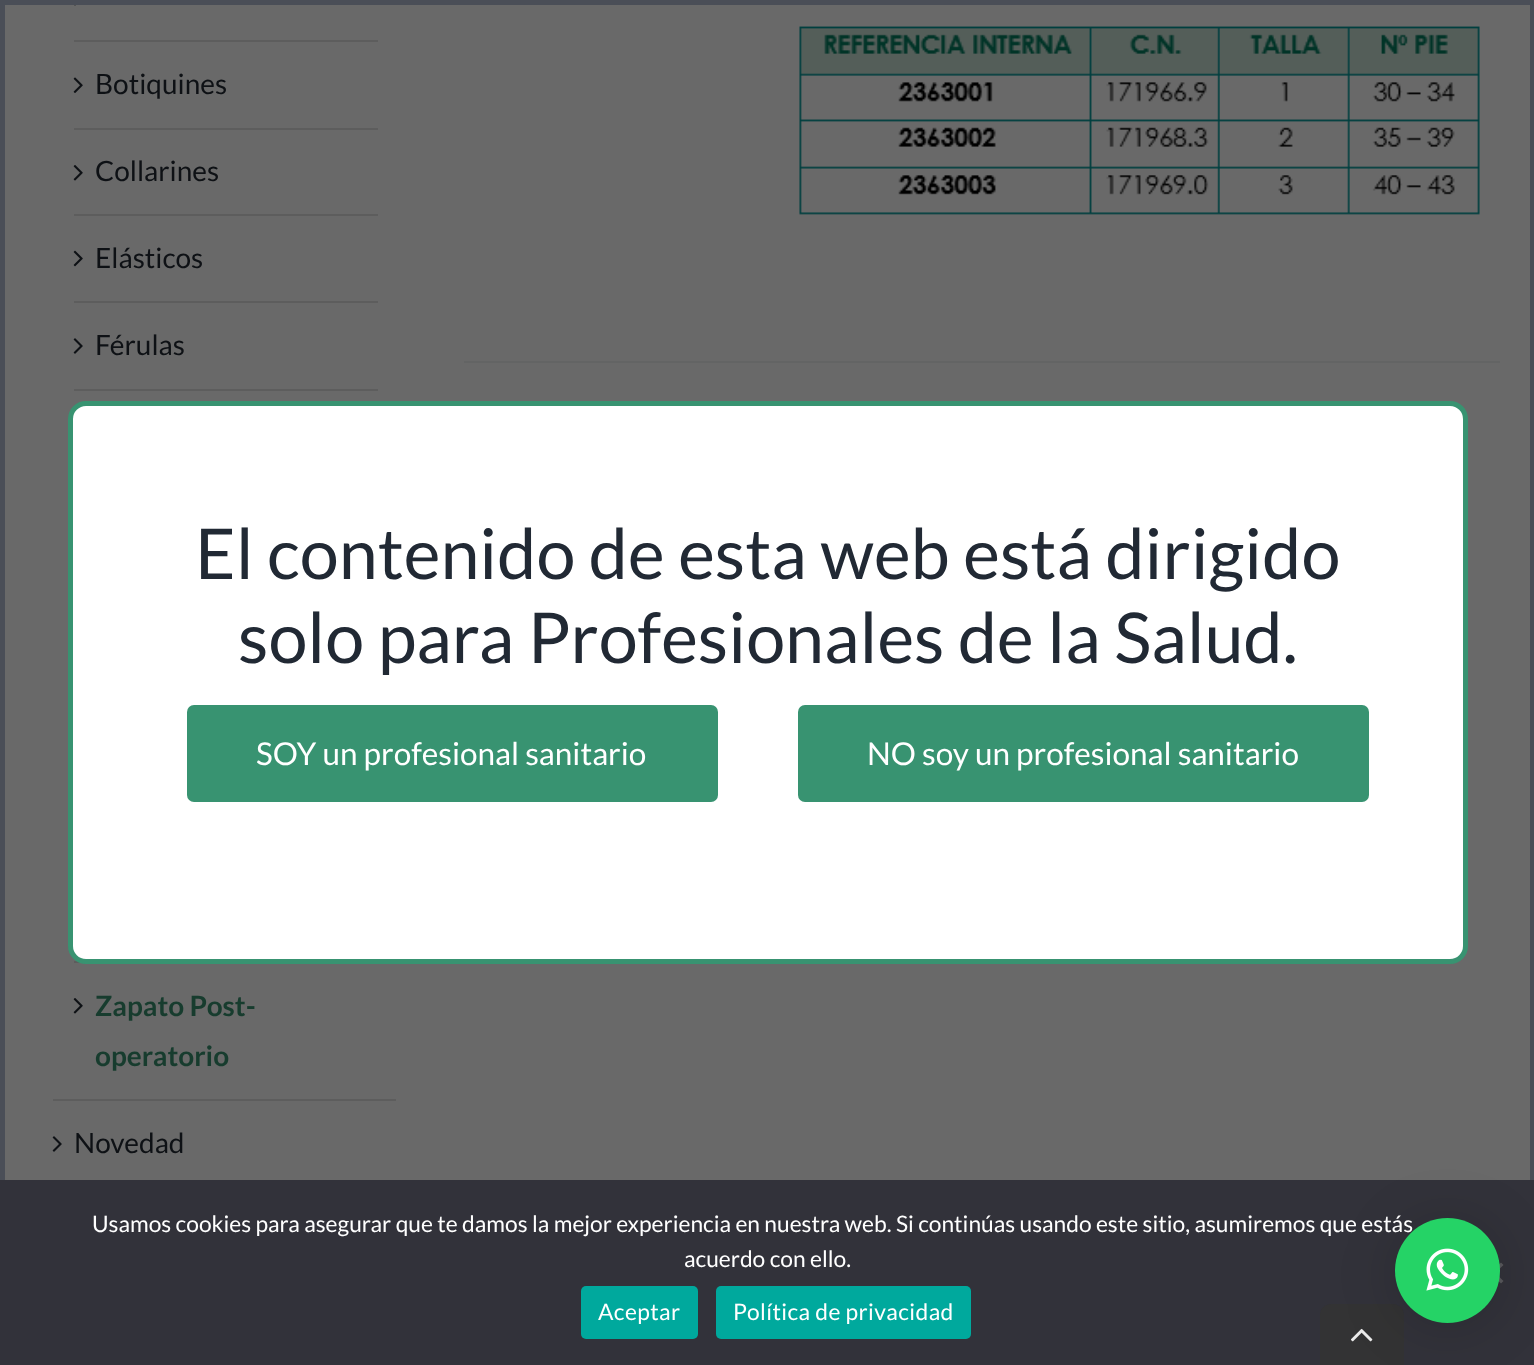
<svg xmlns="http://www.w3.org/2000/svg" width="1534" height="1365">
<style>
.a{font:28px Lato;fill:#0e1115}
.b{font:bold 28px Lato;fill:#173c2e}
.c{font:70px Lato;fill:#212934}
.d{font:31.5px Lato;fill:#fff}
.e{font:22.75px Lato;fill:#fff}
.f{font:22.75px Lato;letter-spacing:0.4px;fill:#fff}
</style>
<rect width="100%" height="100%" fill="#696969"/>
<path fill="#5d5d5d" d="M53 1099h343v2H53z"/>
<path fill="#5d5d5d" d="M74 40h304v2H74z"/>
<image href="1.png" x="74" y="5" width="2" height="1"/>
<path fill="#5d5d5d" d="M74 128h304v2H74z"/>
<image href="2.png" x="73" y="77" width="10" height="16"/>
<path fill="#5d5d5d" d="M74 214h304v2H74z"/>
<image href="3.png" x="73" y="165" width="10" height="16"/>
<path fill="#5d5d5d" d="M74 301h304v2H74z"/>
<image href="4.png" x="73" y="250" width="10" height="17"/>
<path fill="#5d5d5d" d="M74 389h304v2H74z"/>
<image href="5.png" x="73" y="338" width="10" height="16"/>
<path fill="#5d5d5d" d="M74 961h6v2H74z"/>
<image href="3.png" x="73" y="998" width="10" height="16"/>
<image href="5.png" x="52" y="1136" width="10" height="16"/>
<path fill="#636464" d="M464 361h1036v2H464z"/>
<image href="6.png" x="799" y="26" width="681" height="189"/>
<path fill="none" stroke="#4a4e57" stroke-width="5" d="M2.5 2.5h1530v1360H2.5z"/>
<rect fill="#fff" stroke="#389371" stroke-width="5" x="70.5" y="403.5" width="1395" height="558" rx="15.5"/>
<rect fill="#389371" x="187" y="705" width="531" height="97" rx="7"/>
<rect fill="#389371" x="798" y="705" width="571" height="97" rx="7"/>
<path fill="#32323a" d="M0 1180h1534v185H0z"/>
<path fill="#59595d" d="M1501 1262.5l2.5 2.5l-19 18.5l-2.5-2.5z"/>
<path fill="#59595d" d="M1482 1265l2.5-2.5l19 18.5l-2.5 2.5z"/>
<rect fill="#00a99d" x="581" y="1286" width="117" height="53" rx="5"/>
<rect fill="#00a99d" x="716" y="1286" width="255" height="53" rx="5"/>
<path fill="#333334" d="M1331 1304h62c6 0 11 5 11 11v50h-84v-50c0-6 5-11 11-11z"/>
<image href="8.png" x="1351" y="1328" width="22" height="14"/>
<rect fill="#00000029" filter="blur(28px)" x="1395" y="1222" width="105" height="105" rx="52.5"/>
<text class="a" x="95" y="94">Botiquines</text>
<text class="a" x="95" y="181">Collarines</text>
<text class="a" x="95" y="268">Elásticos</text>
<text class="a" x="95" y="355">Férulas</text>
<text class="b" x="95" y="1016">Zapato Post-</text>
<text class="b" x="95" y="1066">operatorio</text>
<text class="a" x="74" y="1153">Novedad</text>
<text class="c" x="195" y="579">El contenido de esta web está dirigido</text>
<text class="c" x="238" y="663">solo para Profesionales de la Salud.</text>
<text class="d" x="256" y="765">SOY un profesional sanitario</text>
<text class="d" x="867" y="765">NO soy un profesional sanitario</text>
<text class="e" x="92" y="1232">Usamos cookies para asegurar que te damos la mejor experiencia en nuestra web. Si continúas usando este sitio, asumiremos que estás</text>
<text class="e" x="684" y="1267">acuerdo con ello.</text>
<text class="f" x="598" y="1320">Aceptar</text>
<text class="f" x="733" y="1320">Política de privacidad</text>
<circle fill="#25d366" cx="1447.5" cy="1270.5" r="52.5"/>
<image href="7.png" x="1426" y="1248" width="43" height="43"/>
</svg>
